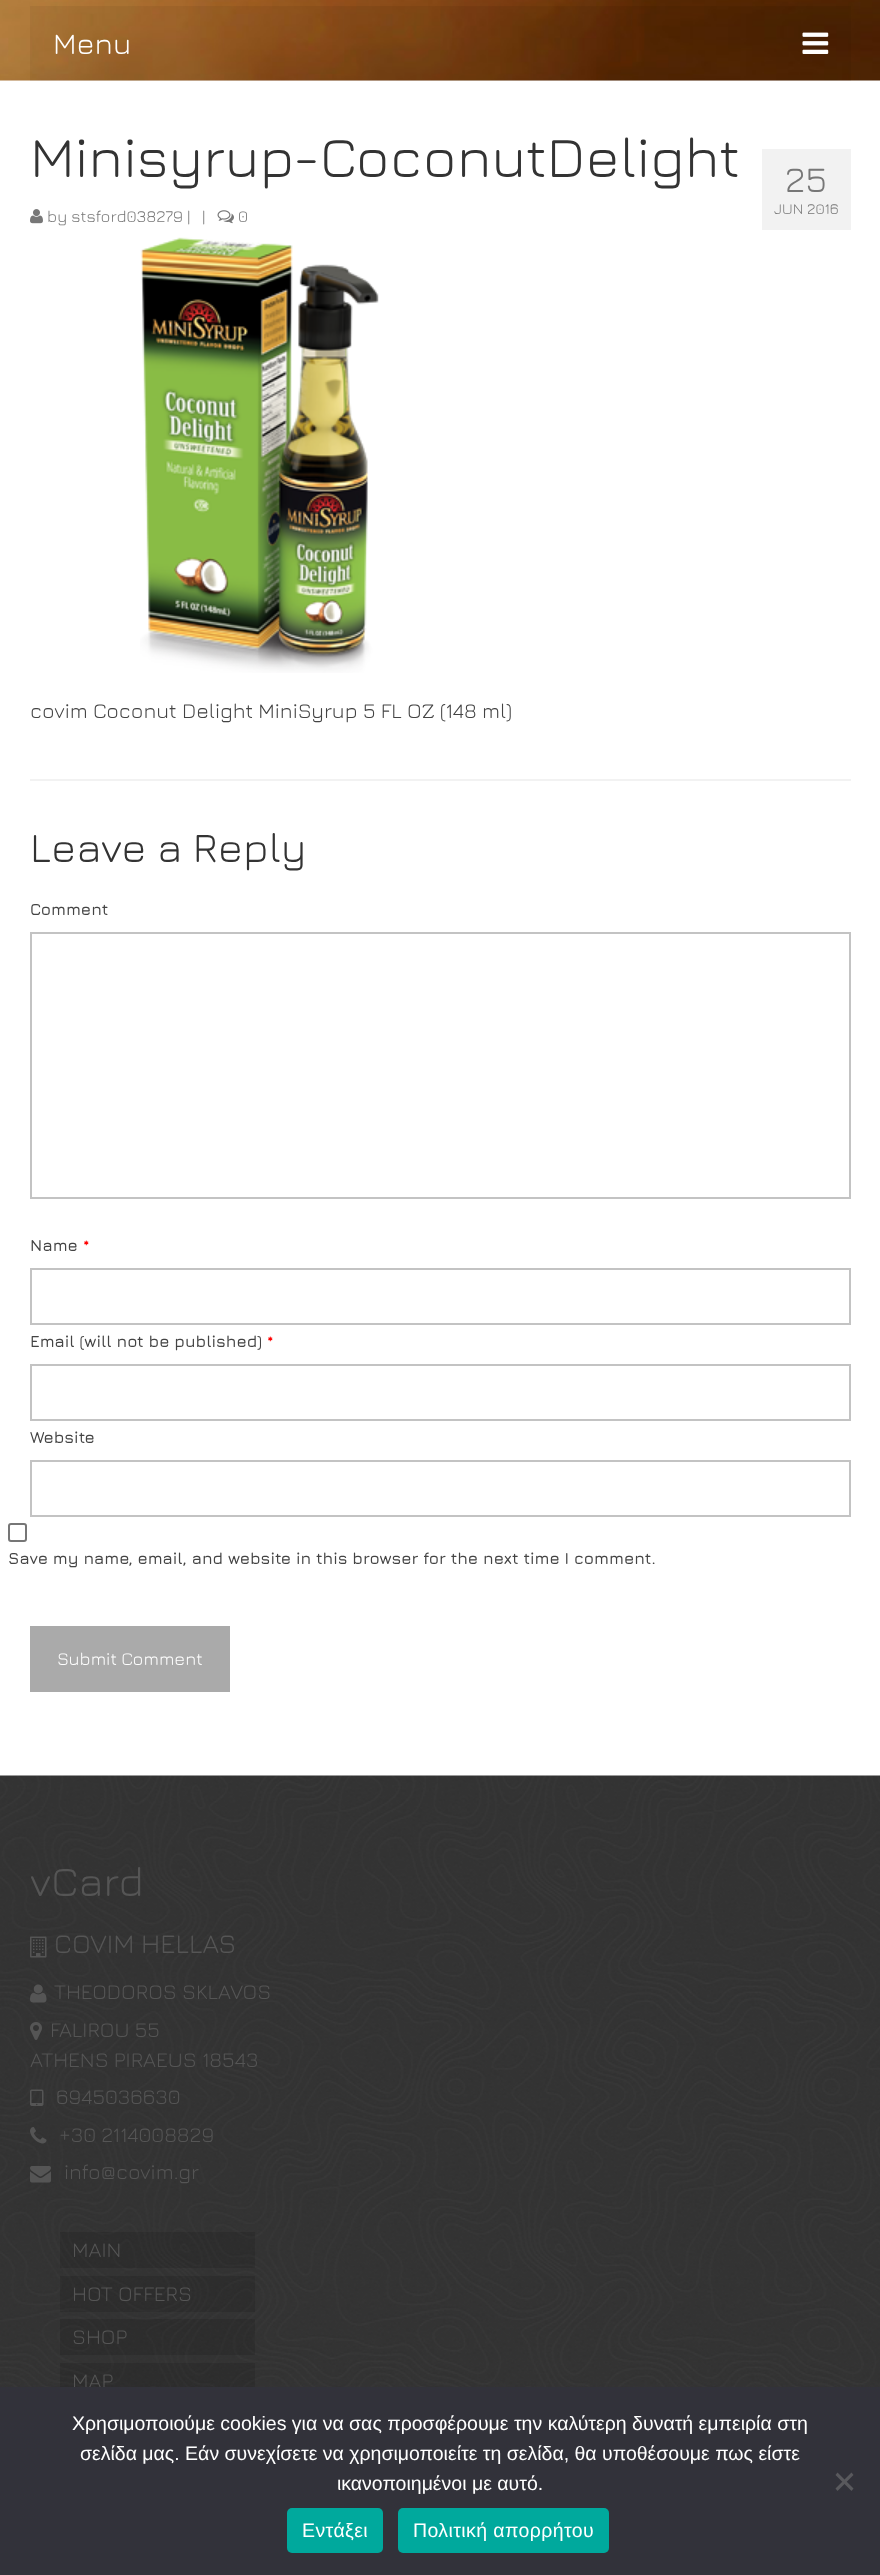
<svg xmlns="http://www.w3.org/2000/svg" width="880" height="2575">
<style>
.a{font:30px Jura;fill:#fff}
.b{font:57px Jura;fill:#333}
.c{font:16.5px Jura;fill:#777}
.d{font:36px Jura;fill:#777}
.e{font:15px Jura;fill:#777}
.f{font:21px Jura;fill:#444}
.g{font:42px Jura;fill:#333}
.h{font:600 16.5px Jura;fill:#444}
.i{font:600 16.5px Jura;fill:#f00}
.j{font:18px Jura;fill:#fff}
.k{font:42px Jura;fill:#555}
.l{font:27px Jura;fill:#555}
.m{font:21px Jura;fill:#555}
.n{font:19.5px Liberation Sans;fill:#fff}
.o{font:19.5px Liberation Sans;letter-spacing:0.4px;fill:#fff}
</style>
<rect width="100%" height="100%" fill="#fff"/>
<image href="1.png" x="0" y="0" width="880" height="81"/>
<path fill="#0000000d" d="M30 6h821v75H30z"/>
<image href="2.png" x="802" y="32" width="27" height="22"/>
<image href="3.png" x="30" y="209" width="13" height="15"/>
<image href="4.png" x="217" y="210" width="17" height="14"/>
<path fill="#f2f2f2" d="M762 149h89v81H762z"/>
<image href="5.png" x="140" y="237" width="239" height="436"/>
<path fill="#f2f2f2" d="M30 779h821v2H30z"/>
<path fill="none" stroke="#c3c3c3" stroke-width="2" d="M31 933h819v265H31z"/>
<path fill="none" stroke="#c3c3c3" stroke-width="2" d="M31 1269h819v55H31z"/>
<path fill="none" stroke="#c3c3c3" stroke-width="2" d="M31 1365h819v55H31z"/>
<path fill="none" stroke="#c3c3c3" stroke-width="2" d="M31 1461h819v55H31z"/>
<rect fill="none" stroke="#767676" stroke-width="2" x="9" y="1524" width="17" height="17" rx="2"/>
<path fill="#aaa" d="M30 1626h200v66H30z"/>
<image href="6.png" x="0" y="1775" width="880" height="612"/>
<image href="7.png" x="30" y="1936" width="17" height="22"/>
<image href="8.png" x="30" y="1984" width="17" height="19"/>
<image href="9.png" x="30" y="2022" width="12" height="18"/>
<image href="10.png" x="30" y="2089" width="14" height="17"/>
<image href="11.png" x="30" y="2127" width="17" height="17"/>
<image href="12.png" x="30" y="2166" width="21" height="17"/>
<path fill="#0000001a" d="M60 2232h195v36H60z"/>
<path fill="#0000001a" d="M60 2276h195v36H60z"/>
<path fill="#0000001a" d="M60 2319h195v36H60z"/>
<path fill="#0000001a" d="M60 2363h195v24H60z"/>
<text class="a" x="53" y="54">Menu</text>
<text class="b" x="30" y="177">Minisyrup-CoconutDelight</text>
<text class="c" x="47" y="222">by stsford038279 |</text>
<text class="c" x="202" y="222">|</text>
<text class="c" x="238" y="222">0</text>
<text class="d" x="785" y="192">25</text>
<text class="e" x="774" y="214">JUN 2016</text>
<text class="f" x="30" y="718">covim Coconut Delight MiniSyrup 5 FL OZ (148 ml)</text>
<text class="g" x="30" y="862">Leave a Reply</text>
<text class="h" x="30" y="915">Comment</text>
<text class="h" x="30" y="1251">Name</text>
<text class="i" x="83" y="1251">*</text>
<text class="h" x="30" y="1347">Email (will not be published)</text>
<text class="i" x="267" y="1347">*</text>
<text class="h" x="30" y="1443">Website</text>
<text class="h" x="8" y="1564">Save my name, email, and website in this browser for the next time I comment.</text>
<text class="j" x="57" y="1665">Submit Comment</text>
<text class="k" x="30" y="1896">vCard</text>
<text class="l" x="54" y="1953">COVIM HELLAS</text>
<text class="m" x="54" y="1999">THEODOROS SKLAVOS</text>
<text class="m" x="50" y="2037">FALIROU 55</text>
<text class="m" x="30" y="2067">ATHENS PIRAEUS 18543</text>
<text class="m" x="56" y="2104">6945036630</text>
<text class="m" x="59" y="2142">+30 2114008829</text>
<text class="m" x="64" y="2179">info@covim.gr</text>
<text class="m" x="72" y="2257">MAIN</text>
<text class="m" x="72" y="2301">HOT OFFERS</text>
<text class="m" x="72" y="2344">SHOP</text>
<text class="m" x="72" y="2388">MAP</text>
<path fill="#32323a" d="M0 2387h880v188H0z"/>
<text class="n" x="72" y="2430">Χρησιμοποιούμε cookies για να σας προσφέρουμε την καλύτερη δυνατή εμπειρία στη</text>
<text class="n" x="80" y="2460">σελίδα μας. Εάν συνεχίσετε να χρησιμοποιείτε τη σελίδα, θα υποθέσουμε πως είστε</text>
<text class="n" x="337" y="2490">ικανοποιημένοι με αυτό.</text>
<path fill="#59595d" d="M851.5 2472.5l2 2.5l-16 16l-2-2.5z"/>
<path fill="#59595d" d="M835.5 2475l2-2.5l16 16l-2 2.5z"/>
<rect fill="#00a99d" x="287" y="2508" width="96" height="45" rx="5"/>
<text class="o" x="302" y="2537">Εντάξει</text>
<rect fill="#00a99d" x="398" y="2508" width="211" height="45" rx="5"/>
<text class="o" x="413" y="2537">Πολιτική απορρήτου</text>
</svg>
